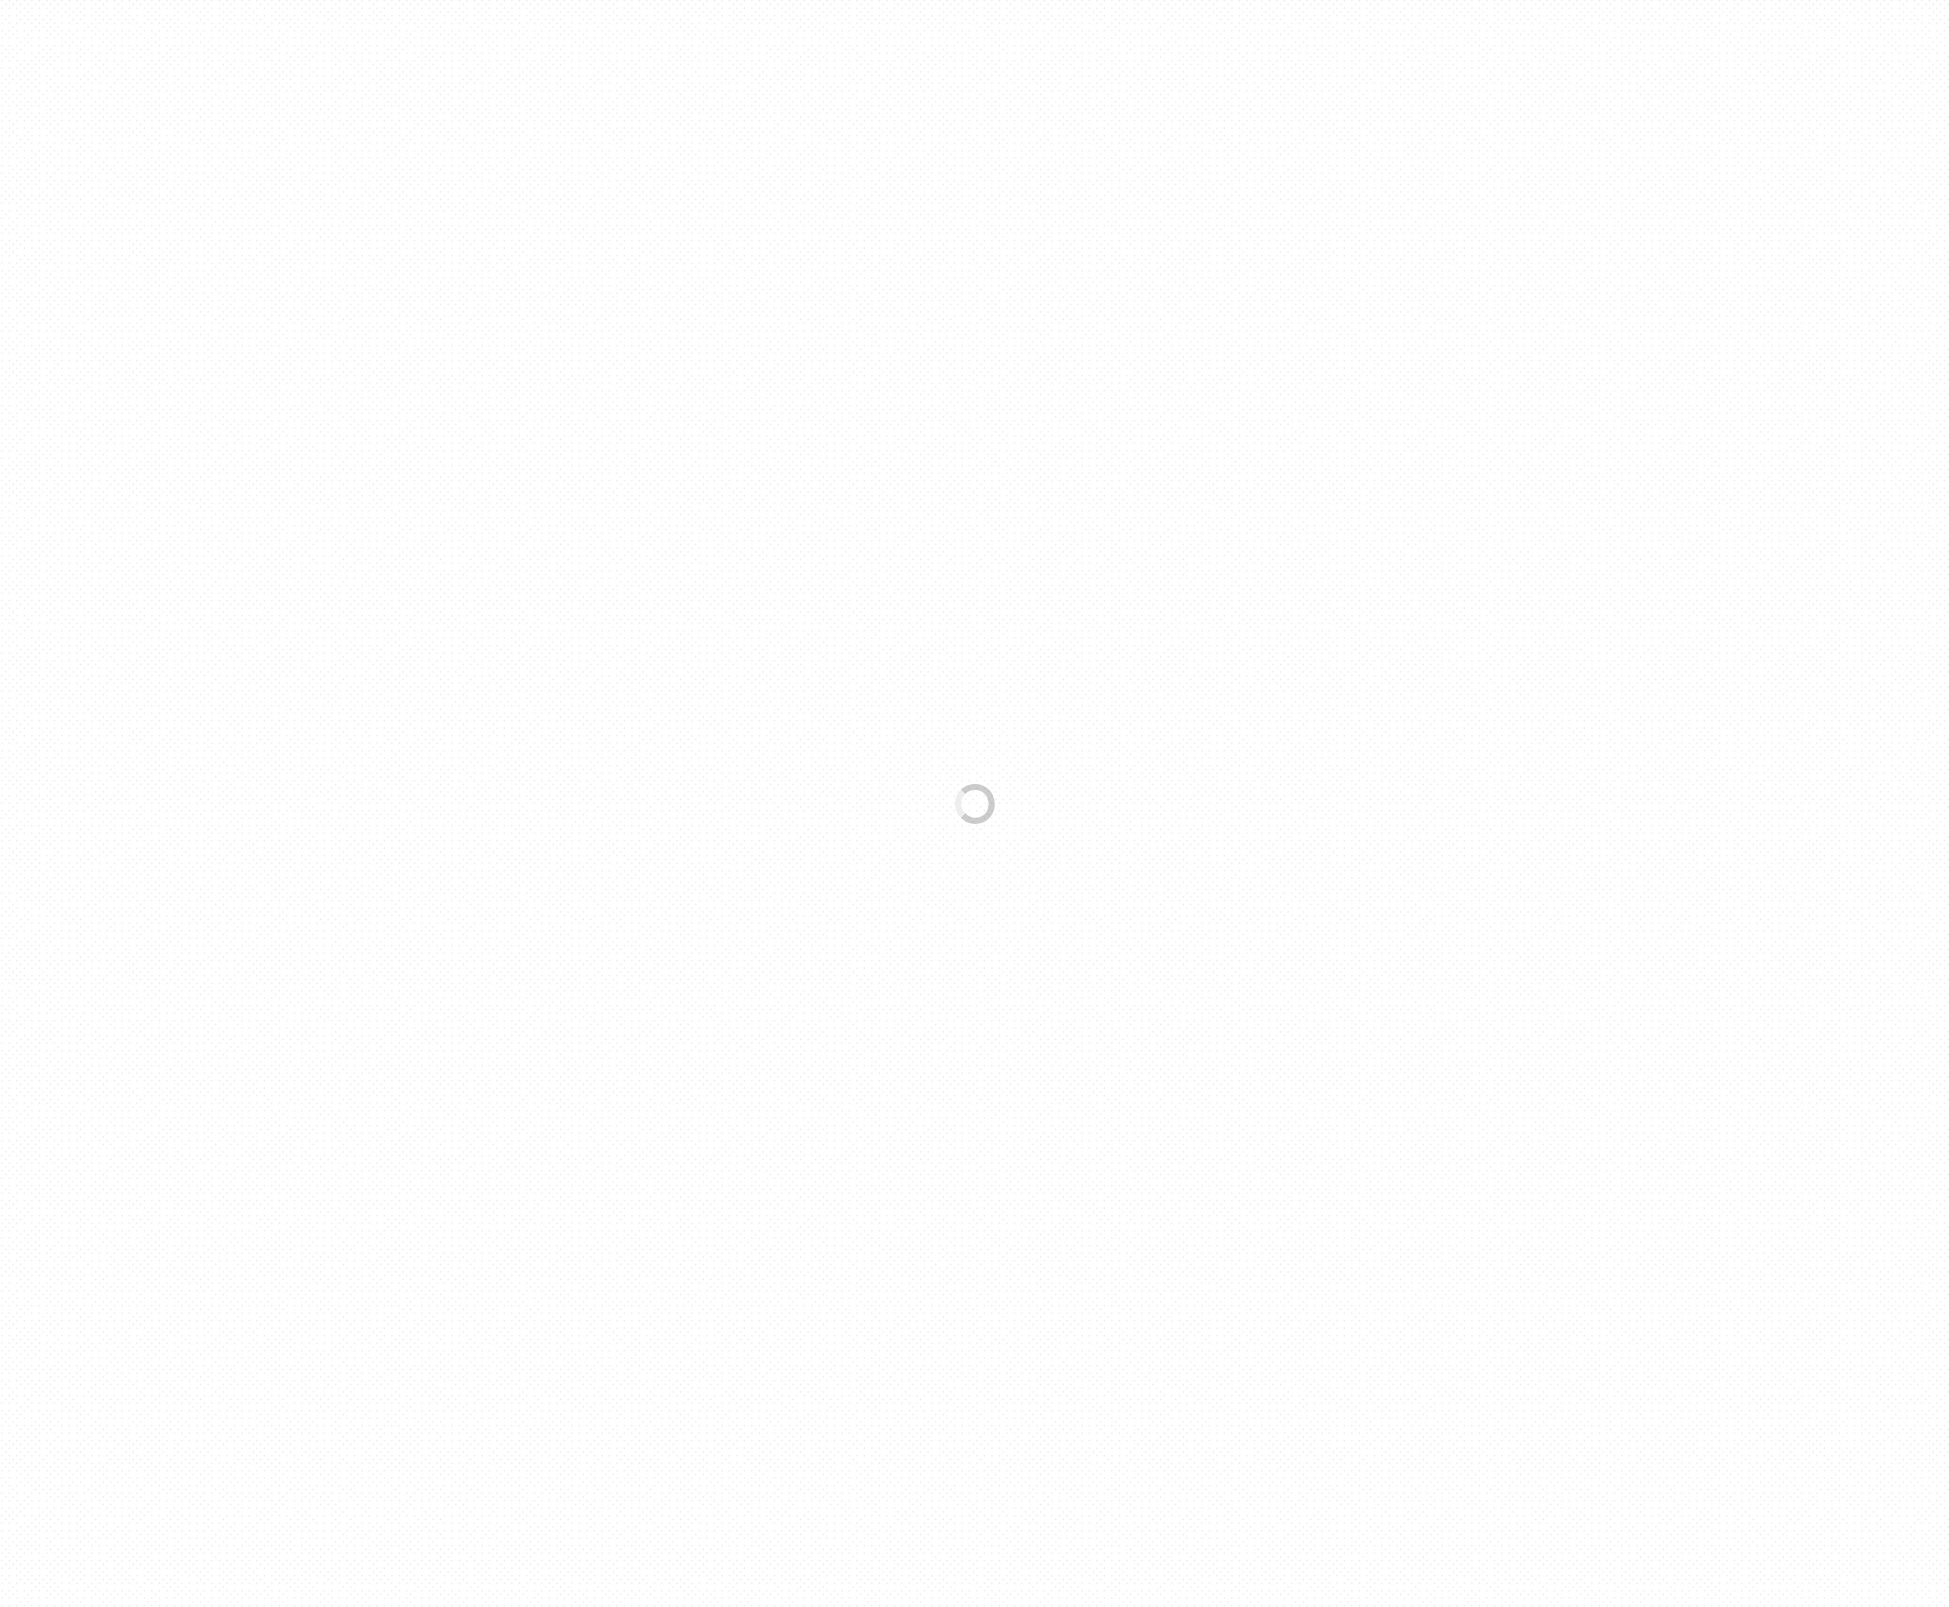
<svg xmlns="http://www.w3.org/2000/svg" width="1949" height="1607">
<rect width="100%" height="100%" fill="#fff"/>
<image href="1.png" x="1" y="0" width="1948" height="1607"/>
<path fill="none" stroke="#00000033" stroke-width="6.2" d="M963 792c3-3.5 7.5-5 12-5c20 0 23 29.5 3.5 33.5c-5.5 1-11.5-1-15.5-5"/>
<path fill="none" stroke="#eee" stroke-width="6.2" d="M963 815.5c-6.5-6.5-6.5-17 0-23.5"/>
</svg>
